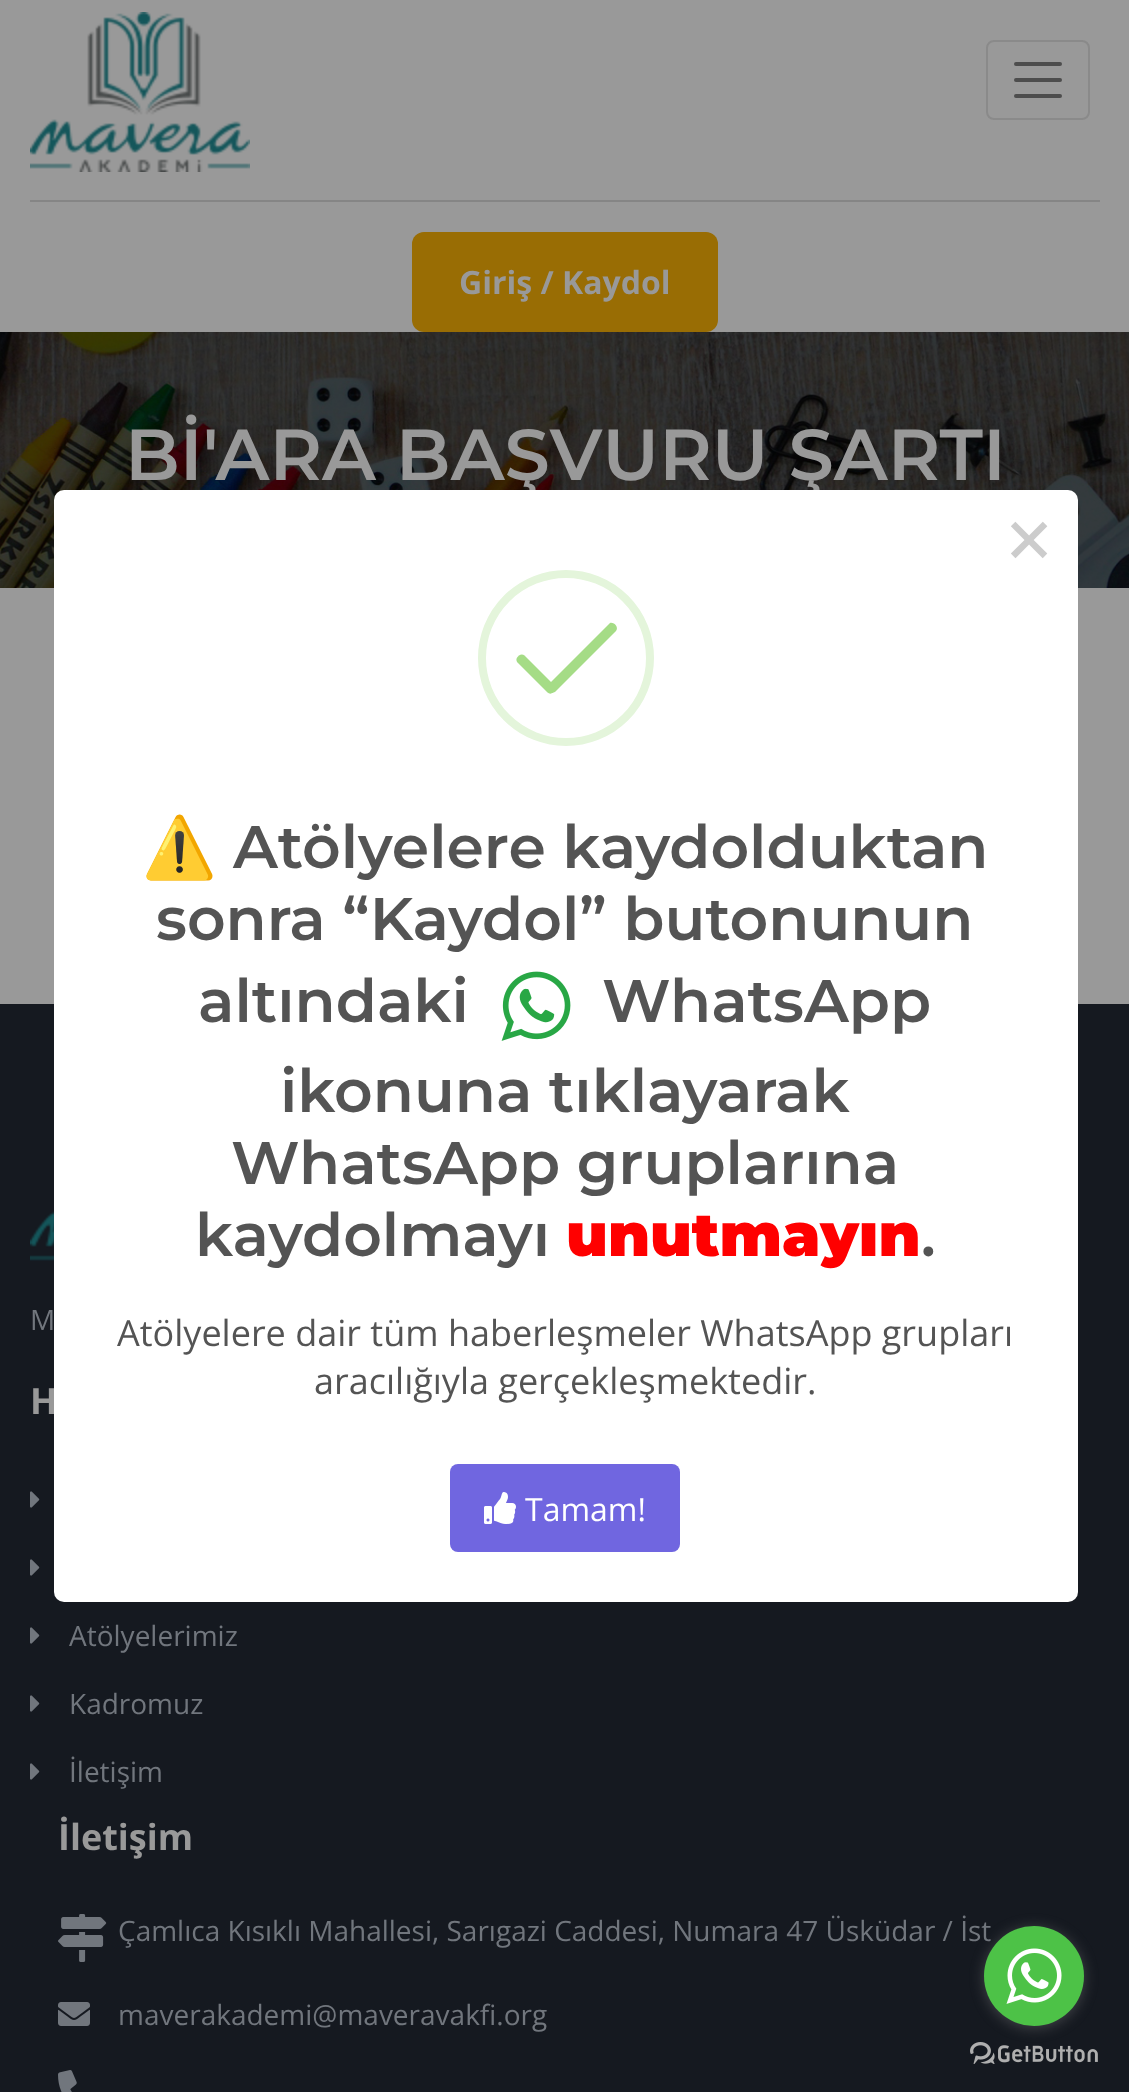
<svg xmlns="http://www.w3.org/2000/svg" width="1129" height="2092">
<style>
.a{font:bold 32px Open Sans;fill:#999}
.b{font:600 72px Montserrat;fill:#999}
.c{font:28px Open Sans;fill:#71767d}
.d{font:bold 36px Open Sans;fill:#999}
.e{font:80px DejaVu Sans Mono;fill:#ccc}
.f{font:32px Open Sans;fill:#fff}
.g{font:36px Open Sans;fill:#545454}
.h{font:600 60px Montserrat;fill:#545454}
.i{font:900 60px Montserrat;fill:#f00}
.j{font:bold 60px Noto Color Emoji;fill:#545454}
</style>
<rect width="100%" height="100%" fill="#999"/>
<image href="1.png" x="30" y="12" width="220" height="160"/>
<rect fill="none" stroke="#8a8a8a" stroke-width="2" x="987" y="41" width="102" height="78" rx="7"/>
<path fill="none" stroke="#4d4d4d" stroke-width="4" stroke-linecap="round" d="M1016 64h44m-44 16h44m-44 16h44"/>
<path fill="#858585" d="M30 200h1070v2H30z"/>
<rect fill="#996d04" x="412" y="232" width="306" height="100" rx="12"/>
<image href="2.png" x="0" y="332" width="1129" height="256"/>
<path fill="#151920" d="M0 1004h1129v1088H0z"/>
<image href="5.png" x="30" y="1211" width="24" height="50"/>
<image href="6.png" x="30" y="1491" width="10" height="17"/>
<image href="6.png" x="30" y="1559" width="10" height="17"/>
<image href="6.png" x="30" y="1627" width="10" height="17"/>
<image href="6.png" x="30" y="1695" width="10" height="17"/>
<image href="6.png" x="30" y="1763" width="10" height="17"/>
<image href="7.png" x="58" y="1914" width="49" height="48"/>
<image href="8.png" x="58" y="2002" width="32" height="24"/>
<image href="9.png" x="58" y="2070" width="19" height="22"/>
<image href="11.png" x="970" y="2042" width="128" height="22"/>
<rect fill="#88888866" filter="blur(7px)" x="984" y="1928" width="100" height="100" rx="50"/>
<text class="a" x="459" y="294">Giriş / Kaydol</text>
<text class="b" x="125" y="480">Bİ'ARA BAŞVURU ŞARTI</text>
<text class="c" x="30" y="1330">M</text>
<text class="d" x="30" y="1414">H</text>
<rect fill="#fff" x="54" y="490" width="1024" height="1112" rx="10"/>
<path fill="#a5dc86" d="M524.5 655.5l30 30c1.5 1.5 1.5 4 0 5.5l-1.5 1.5c-1.5 1.5-4 1.5-5.5 0l-30-30c-1.5-1.5-1.5-4 0-5.5l1.5-1.5c1.5-1.5 4-1.5 5.5 0z"/>
<path fill="#a5dc86" d="M548 685l62-62c4-1 9 4 6 8l-61 61l-3 1c-4-1-7-5-4-8z"/>
<circle fill="none" stroke="#e4f5db" stroke-width="8" cx="566" cy="658" r="84"/>
<text class="e" x="1005" y="565">×</text>
<rect fill="#7066e0" x="450" y="1464" width="230" height="88" rx="8"/>
<text class="f" x="525" y="1521">Tamam!</text>
<image href="4.png" x="484" y="1492" width="32" height="32"/>
<text class="g" x="314" y="1394">aracılığıyla gerçekleşmektedir.</text>
<text class="g" x="117" y="1346">Atölyelere dair tüm haberleşmeler WhatsApp grupları</text>
<image href="3.png" x="501" y="971" width="70" height="70"/>
<text class="h" x="921" y="1256">.</text>
<text class="i" x="566" y="1256">unutmayın</text>
<text class="h" x="195" y="1256">kaydolmayı</text>
<text class="h" x="231" y="1184">WhatsApp gruplarına</text>
<text class="h" x="280" y="1112">ikonuna tıklayarak</text>
<text class="h" x="602" y="1022">WhatsApp</text>
<text class="h" x="198" y="1022">altındaki</text>
<text class="h" x="156" y="940">sonra “Kaydol” butonunun</text>
<text class="h" x="233" y="868">Atölyelere kaydolduktan</text>
<text class="j" x="142" y="868">⚠️</text>
<text class="c" x="69" y="1646">Atölyelerimiz</text>
<text class="c" x="69" y="1714">Kadromuz</text>
<text class="c" x="69" y="1782">İletişim</text>
<text class="d" x="58" y="1850">İletişim</text>
<text class="c" x="118" y="1941">Çamlıca Kısıklı Mahallesi, Sarıgazi Caddesi, Numara 47 Üsküdar / İst</text>
<text class="c" x="118" y="2025">maverakademi@maveravakfi.org</text>
<circle fill="#4dc247" cx="1034" cy="1976" r="50"/>
<image href="10.png" x="1006" y="1948" width="56" height="56"/>
</svg>
